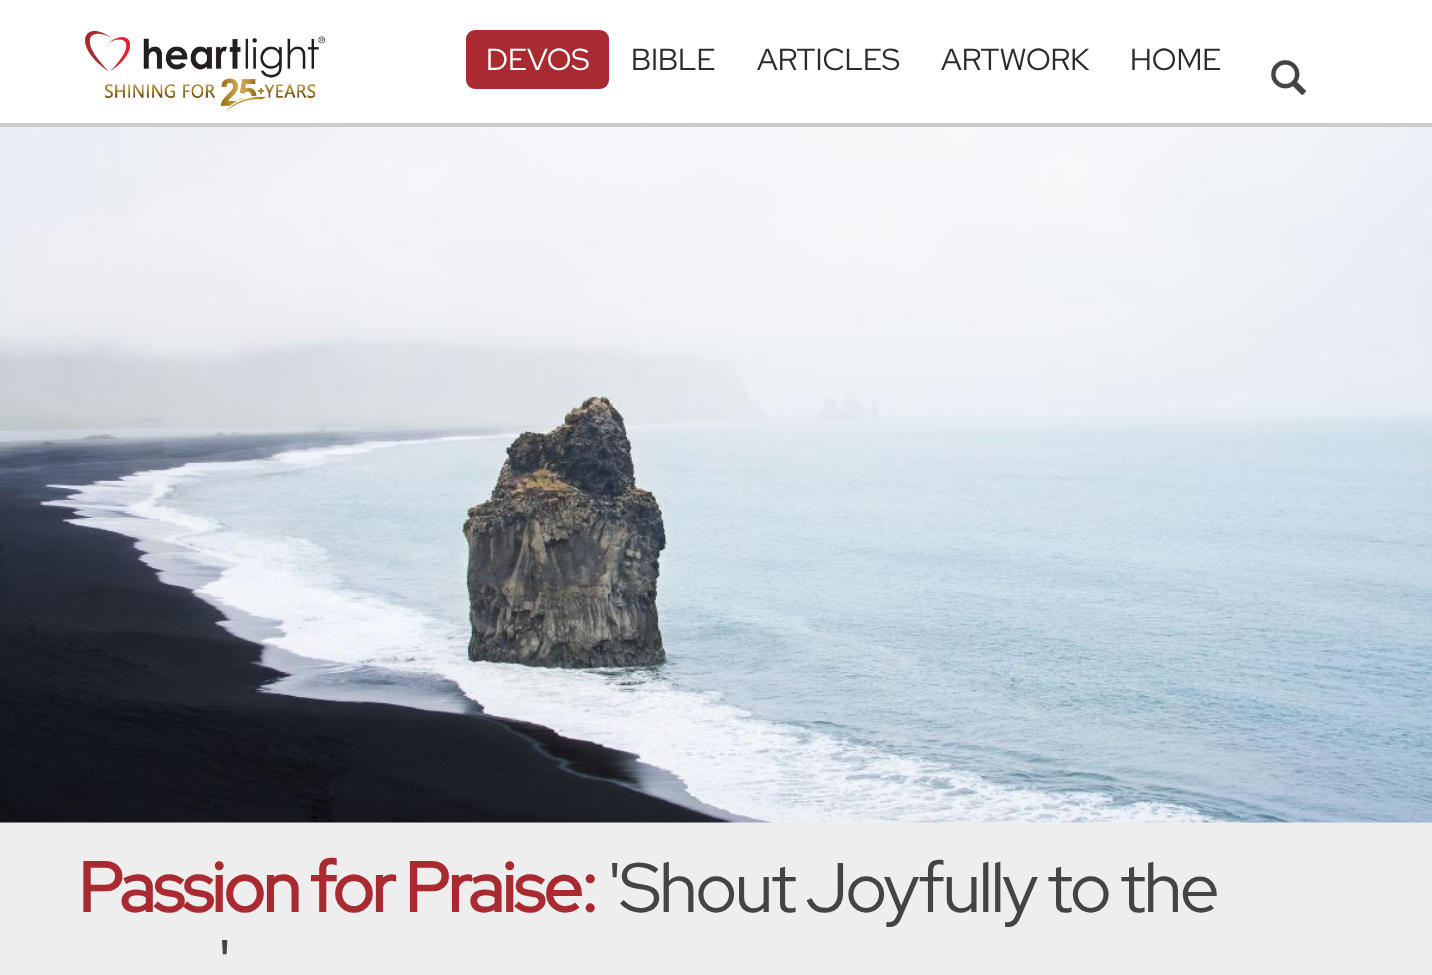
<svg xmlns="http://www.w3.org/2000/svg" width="1432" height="975">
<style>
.a{font:30.5px Red Hat Display;fill:#fff}
.b{font:30.5px Red Hat Display;fill:#2c2c2a}
.c{font:bold 70px Red Hat Display;letter-spacing:-2.1px;fill:#a92a31}
.d{font:70px Red Hat Display;letter-spacing:-2.1px;fill:#444}
</style>
<rect width="100%" height="100%" fill="#eee"/>
<path fill="#fff" d="M0 0h1432v123H0z"/>
<path fill="#ccc" d="M0 123h1432v4H0z"/>
<image href="1.png" x="85" y="30" width="241" height="82"/>
<rect fill="#a92a31" x="466" y="30" width="143" height="59" rx="9"/>
<image href="2.png" x="1271" y="60" width="35" height="35"/>
<image href="3.png" x="0" y="127" width="1432" height="696"/>
<text class="a" x="486" y="70">DEVOS</text>
<text class="b" x="631" y="70">BIBLE</text>
<text class="b" x="757" y="70">ARTICLES</text>
<text class="b" x="941" y="70">ARTWORK</text>
<text class="b" x="1130" y="70">HOME</text>
<text class="c" x="78" y="912" word-spacing="-2">Passion for Praise:</text>
<text class="d" x="608" y="912" word-spacing="-2">'Shout Joyfully to the</text>
<text class="d" x="218" y="989">'</text>
</svg>
